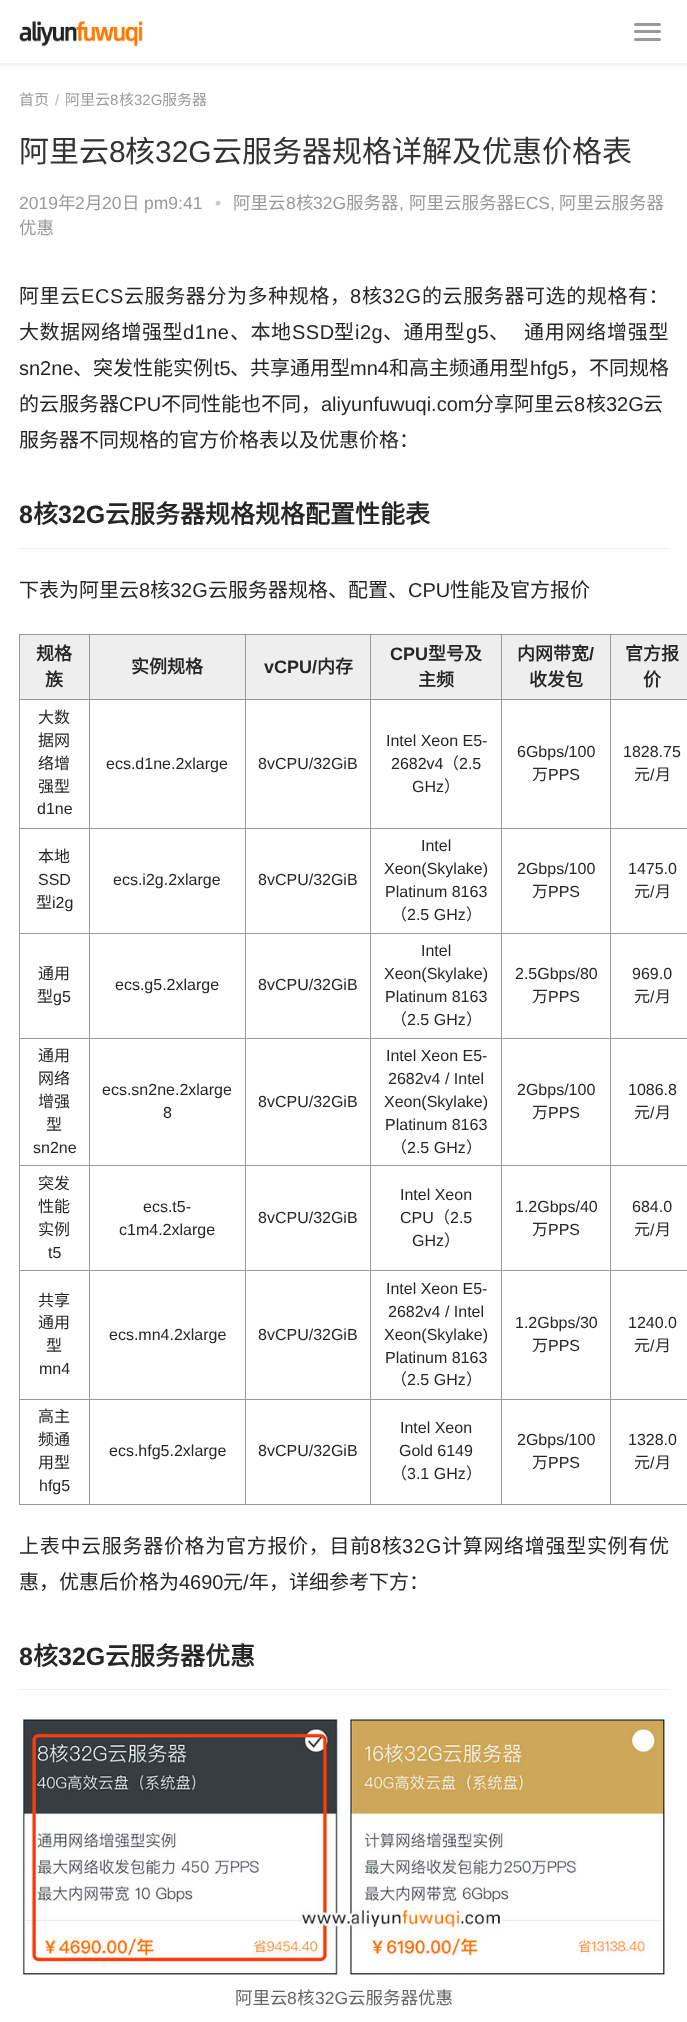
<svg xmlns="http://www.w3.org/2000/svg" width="687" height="2022">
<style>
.a{font:15px Noto Sans CJK SC;fill:#9b9c9f}
.b{font:15px Liberation Sans;fill:#b7b8ba}
.c{font:15px Liberation Sans;fill:#9b9c9f}
.d{font:30px Noto Sans CJK SC;fill:#333}
.e{font:30px Liberation Sans;fill:#333}
.f{font:17.5px Liberation Sans;fill:#999}
.g{font:17.5px Noto Sans CJK SC;fill:#999}
.h{font:17.5px Liberation Sans;fill:#ccc}
.i{font:20px Noto Sans CJK SC;letter-spacing:0.6px;fill:#262626}
.j{font:20px Liberation Sans;letter-spacing:0.6px;fill:#262626}
.k{font:20px Noto Sans CJK SC;letter-spacing:0.5px;fill:#262626}
.l{font:20px Liberation Sans;letter-spacing:0.5px;fill:#262626}
.m{font:20px Noto Sans CJK SC;letter-spacing:0.75px;fill:#262626}
.n{font:20px Liberation Sans;fill:#262626}
.o{font:20px Noto Sans CJK SC;fill:#262626}
.p{font:bold 25px Liberation Sans;fill:#262626}
.q{font:bold 25px Noto Sans CJK SC;fill:#262626}
.r{font:bold 18px Noto Sans CJK SC;fill:#262626}
.s{font:bold 18px Liberation Sans;fill:#262626}
.t{font:16px Noto Sans CJK SC;fill:#262626}
.u{font:16px Liberation Sans;fill:#262626}
.v{font:20px Noto Sans CJK SC;letter-spacing:0.7px;fill:#262626}
.w{font:20px Liberation Sans;letter-spacing:0.7px;fill:#262626}
.x{font:17.5px Noto Sans CJK SC;fill:#666}
.y{font:17.5px Liberation Sans;fill:#666}
</style>
<rect width="100%" height="100%" fill="#fff"/>
<path fill="#0000001a" filter="blur(2px)" d="M-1 -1h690v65H-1z"/>
<path fill="#fff" d="M0 0h687v63H0z"/>
<image href="1.png" x="19" y="21" width="124" height="26"/>
<rect fill="#999" x="634" y="23" width="27" height="3" rx="1.5"/>
<rect fill="#999" x="634" y="30" width="27" height="3" rx="1.5"/>
<rect fill="#999" x="634" y="38" width="27" height="3" rx="1.5"/>
<path fill="#efefef" d="M19 548h650v1H19z"/>
<path fill="#999" d="M19 634h668v1H19z"/>
<path fill="#999" d="M19 1504h668v1H19z"/>
<path fill="#999" d="M19 634h1v871H19z"/>
<path fill="#eee" d="M20 635h69v64H20z"/>
<path fill="#eee" d="M90 635h155v64H90z"/>
<path fill="#999" d="M610 699h77v1H610z"/>
<path fill="#999" d="M610 828h77v1H610z"/>
<path fill="#999" d="M610 933h77v1H610z"/>
<path fill="#999" d="M610 1038h77v1H610z"/>
<path fill="#999" d="M610 1165h77v1H610z"/>
<path fill="#999" d="M610 1270h77v1H610z"/>
<path fill="#999" d="M610 1399h77v1H610z"/>
<path fill="#999" d="M610 1399h1v106H610z"/>
<path fill="#999" d="M501 1399h110v1H501z"/>
<path fill="#999" d="M610 1270h1v130H610z"/>
<path fill="#999" d="M501 1270h110v1H501z"/>
<path fill="#999" d="M610 1165h1v106H610z"/>
<path fill="#999" d="M501 1165h110v1H501z"/>
<path fill="#999" d="M610 1038h1v128H610z"/>
<path fill="#999" d="M501 1038h110v1H501z"/>
<path fill="#999" d="M610 933h1v106H610z"/>
<path fill="#999" d="M501 933h110v1H501z"/>
<path fill="#999" d="M610 828h1v106H610z"/>
<path fill="#999" d="M501 828h110v1H501z"/>
<path fill="#999" d="M610 699h1v130H610z"/>
<path fill="#999" d="M501 699h110v1H501z"/>
<path fill="#999" d="M501 1399h1v106H501z"/>
<path fill="#999" d="M370 1399h133v1H370z"/>
<path fill="#999" d="M501 1270h1v130H501z"/>
<path fill="#999" d="M370 1270h133v1H370z"/>
<path fill="#999" d="M501 1165h1v106H501z"/>
<path fill="#999" d="M370 1165h133v1H370z"/>
<path fill="#999" d="M501 1038h1v128H501z"/>
<path fill="#999" d="M370 1038h133v1H370z"/>
<path fill="#999" d="M501 933h1v106H501z"/>
<path fill="#999" d="M370 933h133v1H370z"/>
<path fill="#999" d="M501 828h1v106H501z"/>
<path fill="#999" d="M370 828h133v1H370z"/>
<path fill="#999" d="M501 699h1v130H501z"/>
<path fill="#999" d="M370 699h133v1H370z"/>
<path fill="#999" d="M370 1399h1v106H370z"/>
<path fill="#999" d="M245 1399h126v1H245z"/>
<path fill="#999" d="M370 1270h1v130H370z"/>
<path fill="#999" d="M245 1270h126v1H245z"/>
<path fill="#999" d="M370 1165h1v106H370z"/>
<path fill="#999" d="M245 1165h126v1H245z"/>
<path fill="#999" d="M370 1038h1v128H370z"/>
<path fill="#999" d="M245 1038h126v1H245z"/>
<path fill="#999" d="M370 933h1v106H370z"/>
<path fill="#999" d="M245 933h126v1H245z"/>
<path fill="#999" d="M370 828h1v106H370z"/>
<path fill="#999" d="M245 828h126v1H245z"/>
<path fill="#999" d="M370 699h1v130H370z"/>
<path fill="#999" d="M245 699h126v1H245z"/>
<path fill="#999" d="M245 1399h1v106H245z"/>
<path fill="#999" d="M89 1399h157v1H89z"/>
<path fill="#999" d="M245 1270h1v130H245z"/>
<path fill="#999" d="M89 1270h157v1H89z"/>
<path fill="#999" d="M245 1165h1v106H245z"/>
<path fill="#999" d="M89 1165h157v1H89z"/>
<path fill="#999" d="M245 1038h1v128H245z"/>
<path fill="#999" d="M89 1038h157v1H89z"/>
<path fill="#999" d="M245 933h1v106H245z"/>
<path fill="#999" d="M89 933h157v1H89z"/>
<path fill="#999" d="M245 828h1v106H245z"/>
<path fill="#999" d="M89 828h157v1H89z"/>
<path fill="#999" d="M245 699h1v130H245z"/>
<path fill="#999" d="M89 699h157v1H89z"/>
<path fill="#999" d="M89 1399h1v106H89z"/>
<path fill="#999" d="M19 1399h71v1H19z"/>
<path fill="#999" d="M89 1270h1v130H89z"/>
<path fill="#999" d="M19 1270h71v1H19z"/>
<path fill="#999" d="M89 1165h1v106H89z"/>
<path fill="#999" d="M19 1165h71v1H19z"/>
<path fill="#999" d="M89 1038h1v128H89z"/>
<path fill="#999" d="M19 1038h71v1H19z"/>
<path fill="#999" d="M89 933h1v106H89z"/>
<path fill="#999" d="M19 933h71v1H19z"/>
<path fill="#999" d="M89 828h1v106H89z"/>
<path fill="#999" d="M19 828h71v1H19z"/>
<path fill="#999" d="M89 699h1v130H89z"/>
<path fill="#999" d="M19 699h71v1H19z"/>
<path fill="#999" d="M89 634h1v66H89z"/>
<path fill="#eee" d="M246 635h124v64H246z"/>
<path fill="#999" d="M245 634h1v66H245z"/>
<path fill="#eee" d="M371 635h130v64H371z"/>
<path fill="#999" d="M370 634h1v66H370z"/>
<path fill="#eee" d="M502 635h108v64H502z"/>
<path fill="#999" d="M501 634h1v66H501z"/>
<path fill="#eee" d="M611 635h76v64H611z"/>
<path fill="#999" d="M610 634h1v66H610z"/>
<path fill="#efefef" d="M19 1689h650v1H19z"/>
<image href="2.png" x="21" y="1715" width="648" height="261"/>
<text class="a" x="19" y="105">首页</text>
<text class="b" x="55" y="105">/</text>
<text class="a" x="65" y="105">阿里云</text>
<text class="c" x="110" y="105">8</text>
<text class="a" x="119" y="105">核</text>
<text class="c" x="134" y="105">32G</text>
<text class="a" x="162" y="105">服务器</text>
<text class="d" x="19" y="162">阿里云</text>
<text class="e" x="109" y="162">8</text>
<text class="d" x="125" y="162">核</text>
<text class="e" x="155" y="162">32G</text>
<text class="d" x="212" y="162">云服务器规格详解及优惠价格表</text>
<text class="f" x="19" y="209">2019</text>
<text class="g" x="58" y="209">年</text>
<text class="f" x="75" y="209">2</text>
<text class="g" x="85" y="209">月</text>
<text class="f" x="102" y="209">20</text>
<text class="g" x="122" y="209">日</text>
<text class="f" x="144" y="209">pm9:41</text>
<text class="h" x="215" y="209">•</text>
<text class="g" x="233" y="209">阿里云</text>
<text class="f" x="286" y="209">8</text>
<text class="g" x="296" y="209">核</text>
<text class="f" x="313" y="209">32G</text>
<text class="g" x="346" y="209">服务器</text>
<text class="g" x="409" y="209">阿里云服务器</text>
<text class="f" x="514" y="209">ECS,</text>
<text class="g" x="559" y="209">阿里云服务器</text>
<text class="f" x="399" y="209">,</text>
<text class="g" x="19" y="234">优惠</text>
<text class="i" x="19" y="303">阿里云</text>
<text class="j" x="81" y="303">ECS</text>
<text class="i" x="124" y="303">云服务器分为多种规格，</text>
<text class="j" x="350" y="303">8</text>
<text class="i" x="362" y="303">核</text>
<text class="j" x="382" y="303">32G</text>
<text class="i" x="422" y="303">的云服务器可选的规格有：</text>
<text class="k" x="19" y="339">大数据网络增强型</text>
<text class="l" x="183" y="339">d1ne</text>
<text class="k" x="230" y="339">、本地</text>
<text class="l" x="292" y="339">SSD</text>
<text class="k" x="334" y="339">型</text>
<text class="l" x="355" y="339">i2g</text>
<text class="k" x="383" y="339">、通用型</text>
<text class="l" x="466" y="339">g5</text>
<text class="k" x="489" y="339">、</text>
<text class="m" x="524" y="339">通用网络增强型</text>
<text class="n" x="19" y="375">sn2ne</text>
<text class="o" x="73" y="375">、突发性能实例</text>
<text class="n" x="214" y="375">t5</text>
<text class="o" x="230" y="375">、共享通用型</text>
<text class="n" x="350" y="375">mn4</text>
<text class="o" x="389" y="375">和高主频通用型</text>
<text class="n" x="530" y="375">hfg5</text>
<text class="o" x="569" y="375">，不同规格</text>
<text class="o" x="19" y="411">的云服务器</text>
<text class="n" x="119" y="411">CPU</text>
<text class="o" x="161" y="411">不同性能也不同，</text>
<text class="n" x="321" y="411">aliyunfuwuqi.com</text>
<text class="o" x="474" y="411">分享阿里云</text>
<text class="n" x="574" y="411">8</text>
<text class="o" x="586" y="411">核</text>
<text class="n" x="606" y="411">32G</text>
<text class="o" x="643" y="411">云</text>
<text class="o" x="19" y="447">服务器不同规格的官方价格表以及优惠价格：</text>
<text class="p" x="19" y="523">8</text>
<text class="q" x="33" y="523">核</text>
<text class="p" x="58" y="523">32G</text>
<text class="q" x="105" y="523">云服务器规格规格配置性能表</text>
<text class="o" x="19" y="597">下表为阿里云</text>
<text class="n" x="139" y="597">8</text>
<text class="o" x="150" y="597">核</text>
<text class="n" x="170" y="597">32G</text>
<text class="o" x="208" y="597">云服务器规格、配置、</text>
<text class="n" x="408" y="597">CPU</text>
<text class="o" x="450" y="597">性能及官方报价</text>
<text class="r" x="36" y="660">规格</text>
<text class="r" x="45" y="686">族</text>
<text class="r" x="131" y="673">实例规格</text>
<text class="s" x="264" y="673">vCPU/</text>
<text class="r" x="317" y="673">内存</text>
<text class="s" x="390" y="660">CPU</text>
<text class="r" x="428" y="660">型号及</text>
<text class="r" x="418" y="686">主频</text>
<text class="r" x="517" y="660">内网带宽</text>
<text class="s" x="589" y="660">/</text>
<text class="r" x="529" y="686">收发包</text>
<text class="r" x="625" y="660">官方报</text>
<text class="r" x="643" y="686">价</text>
<text class="t" x="38" y="723">大数</text>
<text class="t" x="38" y="746">据网</text>
<text class="t" x="38" y="769">络增</text>
<text class="t" x="38" y="792">强型</text>
<text class="u" x="37" y="814">d1ne</text>
<text class="u" x="106" y="769">ecs.d1ne.2xlarge</text>
<text class="u" x="258" y="769">8vCPU/32GiB</text>
<text class="u" x="386" y="746">Intel Xeon E5-</text>
<text class="u" x="391" y="769">2682v4</text>
<text class="t" x="443" y="769">（</text>
<text class="u" x="459" y="769">2.5</text>
<text class="u" x="412" y="792">GHz</text>
<text class="t" x="444" y="792">）</text>
<text class="u" x="517" y="757">6Gbps/100</text>
<text class="t" x="532" y="780">万</text>
<text class="u" x="548" y="780">PPS</text>
<text class="u" x="623" y="757">1828.75</text>
<text class="t" x="634" y="780">元</text>
<text class="u" x="650" y="780">/</text>
<text class="t" x="655" y="780">月</text>
<text class="t" x="38" y="862">本地</text>
<text class="u" x="38" y="885">SSD</text>
<text class="t" x="36" y="908">型</text>
<text class="u" x="52" y="908">i2g</text>
<text class="u" x="113" y="885">ecs.i2g.2xlarge</text>
<text class="u" x="258" y="885">8vCPU/32GiB</text>
<text class="u" x="421" y="851">Intel</text>
<text class="u" x="384" y="874">Xeon(Skylake)</text>
<text class="u" x="385" y="897">Platinum 8163</text>
<text class="t" x="391" y="920">（</text>
<text class="u" x="407" y="920">2.5 GHz</text>
<text class="t" x="466" y="920">）</text>
<text class="u" x="517" y="874">2Gbps/100</text>
<text class="t" x="532" y="897">万</text>
<text class="u" x="548" y="897">PPS</text>
<text class="u" x="628" y="874">1475.0</text>
<text class="t" x="634" y="897">元</text>
<text class="u" x="650" y="897">/</text>
<text class="t" x="655" y="897">月</text>
<text class="t" x="38" y="979">通用</text>
<text class="t" x="37" y="1002">型</text>
<text class="u" x="53" y="1002">g5</text>
<text class="u" x="115" y="990">ecs.g5.2xlarge</text>
<text class="u" x="258" y="990">8vCPU/32GiB</text>
<text class="u" x="421" y="956">Intel</text>
<text class="u" x="384" y="979">Xeon(Skylake)</text>
<text class="u" x="385" y="1002">Platinum 8163</text>
<text class="t" x="391" y="1025">（</text>
<text class="u" x="407" y="1025">2.5 GHz</text>
<text class="t" x="466" y="1025">）</text>
<text class="u" x="515" y="979">2.5Gbps/80</text>
<text class="t" x="532" y="1002">万</text>
<text class="u" x="548" y="1002">PPS</text>
<text class="u" x="632" y="979">969.0</text>
<text class="t" x="634" y="1002">元</text>
<text class="u" x="650" y="1002">/</text>
<text class="t" x="655" y="1002">月</text>
<text class="t" x="38" y="1061">通用</text>
<text class="t" x="38" y="1084">网络</text>
<text class="t" x="38" y="1107">增强</text>
<text class="t" x="46" y="1130">型</text>
<text class="u" x="33" y="1153">sn2ne</text>
<text class="u" x="102" y="1095">ecs.sn2ne.2xlarge</text>
<text class="u" x="163" y="1118">8</text>
<text class="u" x="258" y="1107">8vCPU/32GiB</text>
<text class="u" x="386" y="1061">Intel Xeon E5-</text>
<text class="u" x="388" y="1084">2682v4 / Intel</text>
<text class="u" x="384" y="1107">Xeon(Skylake)</text>
<text class="u" x="385" y="1130">Platinum 8163</text>
<text class="t" x="391" y="1153">（</text>
<text class="u" x="407" y="1153">2.5 GHz</text>
<text class="t" x="466" y="1153">）</text>
<text class="u" x="517" y="1095">2Gbps/100</text>
<text class="t" x="532" y="1118">万</text>
<text class="u" x="548" y="1118">PPS</text>
<text class="u" x="628" y="1095">1086.8</text>
<text class="t" x="634" y="1118">元</text>
<text class="u" x="650" y="1118">/</text>
<text class="t" x="655" y="1118">月</text>
<text class="t" x="38" y="1189">突发</text>
<text class="t" x="38" y="1212">性能</text>
<text class="t" x="38" y="1235">实例</text>
<text class="u" x="48" y="1258">t5</text>
<text class="u" x="143" y="1212">ecs.t5-</text>
<text class="u" x="119" y="1235">c1m4.2xlarge</text>
<text class="u" x="258" y="1223">8vCPU/32GiB</text>
<text class="u" x="400" y="1200">Intel Xeon</text>
<text class="u" x="400" y="1223">CPU</text>
<text class="t" x="434" y="1223">（</text>
<text class="u" x="450" y="1223">2.5</text>
<text class="u" x="412" y="1246">GHz</text>
<text class="t" x="444" y="1246">）</text>
<text class="u" x="515" y="1212">1.2Gbps/40</text>
<text class="t" x="532" y="1235">万</text>
<text class="u" x="548" y="1235">PPS</text>
<text class="u" x="632" y="1212">684.0</text>
<text class="t" x="634" y="1235">元</text>
<text class="u" x="650" y="1235">/</text>
<text class="t" x="655" y="1235">月</text>
<text class="t" x="38" y="1306">共享</text>
<text class="t" x="38" y="1328">通用</text>
<text class="t" x="46" y="1351">型</text>
<text class="u" x="39" y="1374">mn4</text>
<text class="u" x="109" y="1340">ecs.mn4.2xlarge</text>
<text class="u" x="258" y="1340">8vCPU/32GiB</text>
<text class="u" x="386" y="1294">Intel Xeon E5-</text>
<text class="u" x="388" y="1317">2682v4 / Intel</text>
<text class="u" x="384" y="1340">Xeon(Skylake)</text>
<text class="u" x="385" y="1363">Platinum 8163</text>
<text class="t" x="391" y="1385">（</text>
<text class="u" x="407" y="1385">2.5 GHz</text>
<text class="t" x="466" y="1385">）</text>
<text class="u" x="515" y="1328">1.2Gbps/30</text>
<text class="t" x="532" y="1351">万</text>
<text class="u" x="548" y="1351">PPS</text>
<text class="u" x="628" y="1328">1240.0</text>
<text class="t" x="634" y="1351">元</text>
<text class="u" x="650" y="1351">/</text>
<text class="t" x="655" y="1351">月</text>
<text class="t" x="38" y="1422">高主</text>
<text class="t" x="38" y="1445">频通</text>
<text class="t" x="38" y="1468">用型</text>
<text class="u" x="39" y="1491">hfg5</text>
<text class="u" x="109" y="1456">ecs.hfg5.2xlarge</text>
<text class="u" x="258" y="1456">8vCPU/32GiB</text>
<text class="u" x="400" y="1433">Intel Xeon</text>
<text class="u" x="399" y="1456">Gold 6149</text>
<text class="t" x="391" y="1479">（</text>
<text class="u" x="407" y="1479">3.1 GHz</text>
<text class="t" x="466" y="1479">）</text>
<text class="u" x="517" y="1445">2Gbps/100</text>
<text class="t" x="532" y="1468">万</text>
<text class="u" x="548" y="1468">PPS</text>
<text class="u" x="628" y="1445">1328.0</text>
<text class="t" x="634" y="1468">元</text>
<text class="u" x="650" y="1468">/</text>
<text class="t" x="655" y="1468">月</text>
<text class="v" x="19" y="1553">上表中云服务器价格为官方报价，目前</text>
<text class="w" x="370" y="1553">8</text>
<text class="v" x="382" y="1553">核</text>
<text class="w" x="402" y="1553">32G</text>
<text class="v" x="442" y="1553">计算网络增强型实例有优</text>
<text class="o" x="19" y="1589">惠，优惠后价格为</text>
<text class="n" x="179" y="1589">4690</text>
<text class="o" x="223" y="1589">元</text>
<text class="n" x="243" y="1589">/</text>
<text class="o" x="249" y="1589">年，详细参考下方：</text>
<text class="p" x="19" y="1665">8</text>
<text class="q" x="33" y="1665">核</text>
<text class="p" x="58" y="1665">32G</text>
<text class="q" x="105" y="1665">云服务器优惠</text>
<text class="x" x="235" y="2004">阿里云</text>
<text class="y" x="287" y="2004">8</text>
<text class="x" x="297" y="2004">核</text>
<text class="y" x="315" y="2004">32G</text>
<text class="x" x="348" y="2004">云服务器优惠</text>
</svg>
